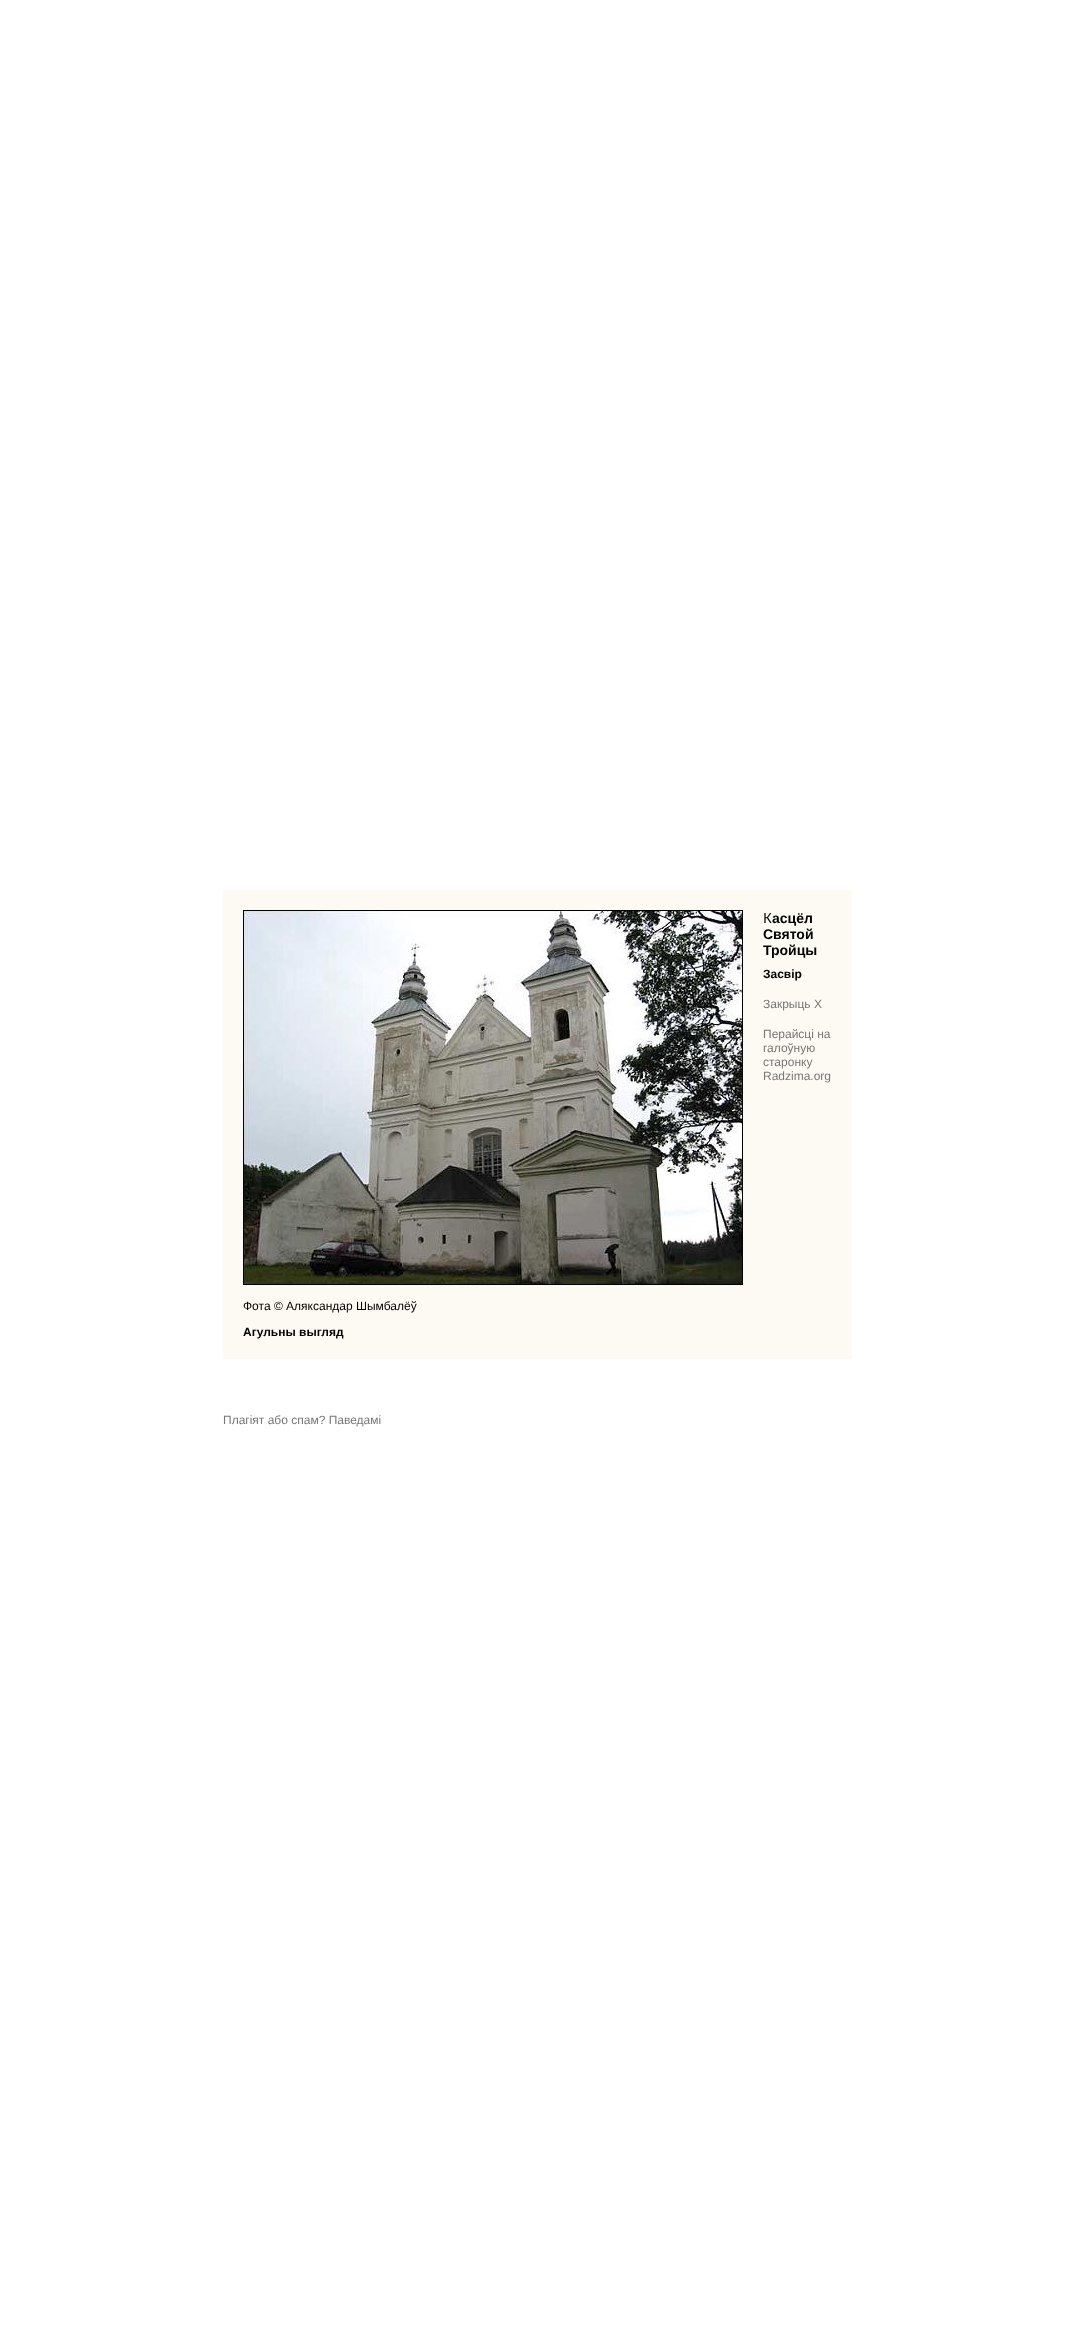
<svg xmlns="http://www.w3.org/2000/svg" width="1075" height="2328">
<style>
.a{font:14px Noto Sans;fill:#000}
.b{font:bold 14px Liberation Sans;fill:#000}
.c{font:bold 12px Liberation Sans;fill:#000}
.d{font:12px Liberation Sans;fill:#777}
.e{font:12px Liberation Sans;fill:#000}
</style>
<rect width="100%" height="100%" fill="#fff"/>
<path fill="#fcfaf2" d="M223 890h629v469H223z"/>
<image href="1.png" x="243" y="910" width="500" height="375"/>
<text class="a" x="763" y="923">К</text>
<text class="b" x="772" y="923">асцёл</text>
<text class="b" x="763" y="939">Святой</text>
<text class="b" x="763" y="955">Тройцы</text>
<text class="c" x="763" y="978">Засвір</text>
<text class="d" x="763" y="1008">Закрыць X</text>
<text class="d" x="763" y="1038">Перайсці на</text>
<text class="d" x="763" y="1052">галоўную</text>
<text class="d" x="763" y="1066">старонку</text>
<text class="d" x="763" y="1080">Radzima.org</text>
<text class="e" x="243" y="1310">Фота © Аляксандар Шымбалёў</text>
<text class="c" x="243" y="1336">Агульны выгляд</text>
<text class="d" x="223" y="1424">Плагіят або спам? Паведамі</text>
</svg>
